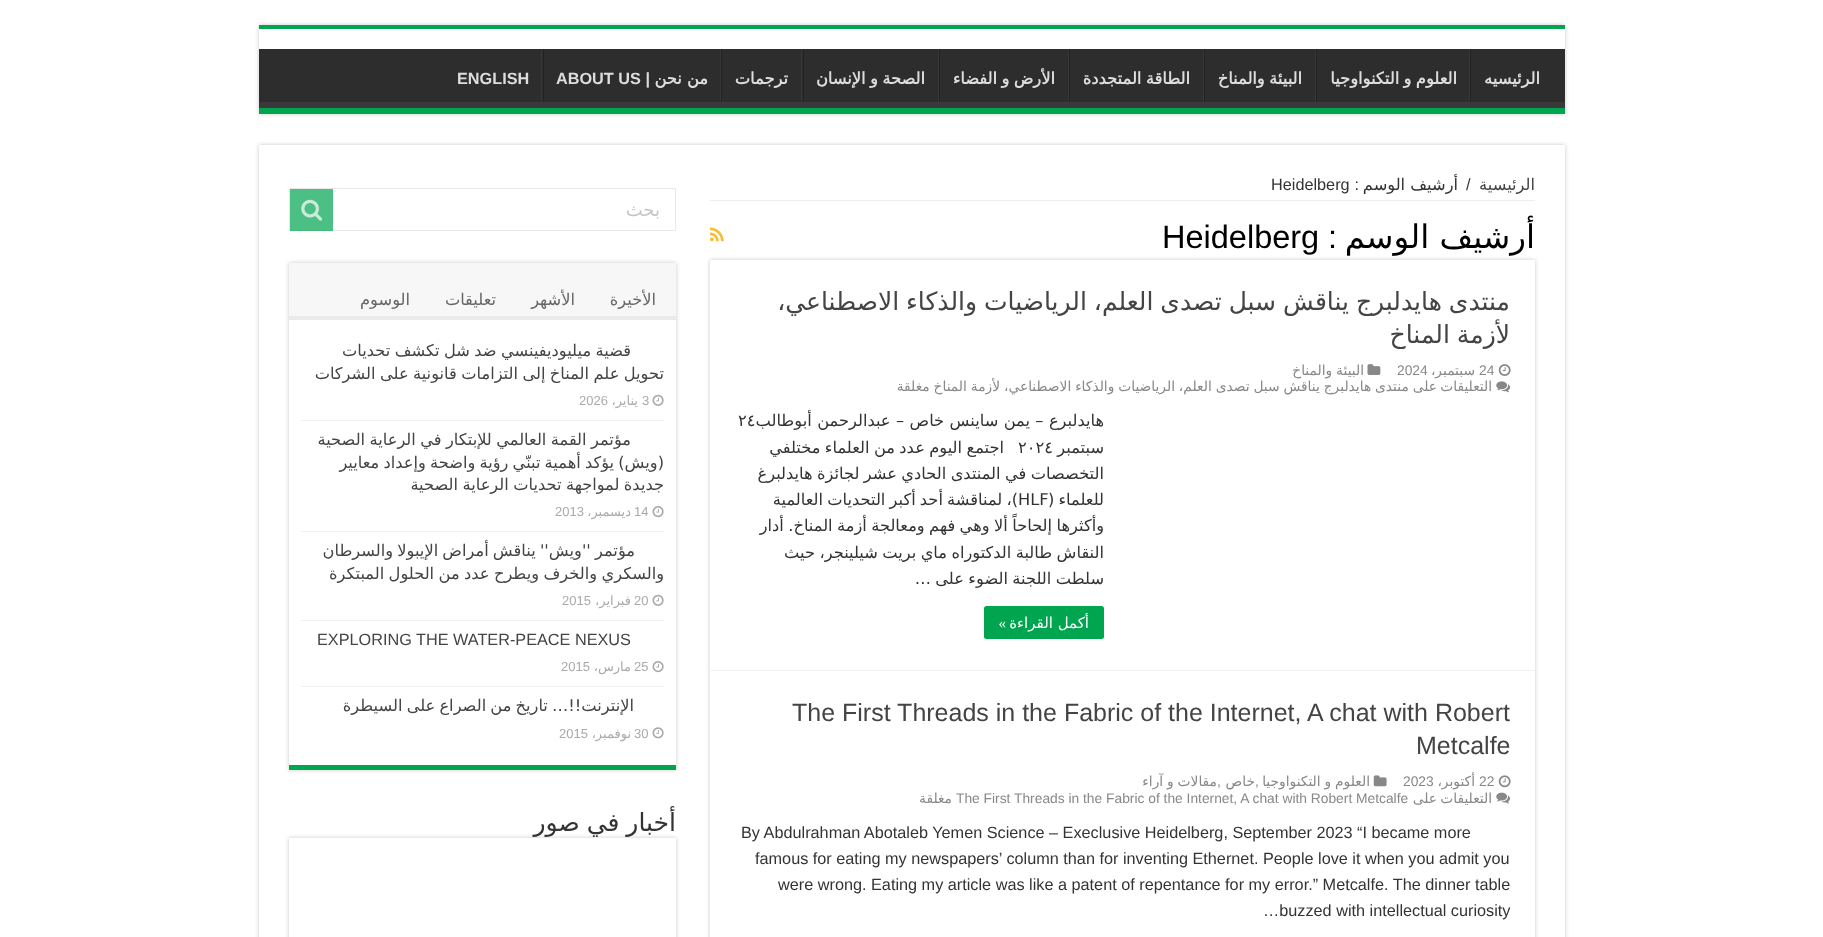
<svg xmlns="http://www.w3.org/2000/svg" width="1823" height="937">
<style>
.a{font:bold 16.25px DejaVu Sans;direction:rtl;fill:#ddd}
.b{font:bold 16.25px Liberation Sans;direction:rtl;fill:#ddd}
.c{font:bold 16.25px Liberation Sans;fill:#ddd}
.d{font:16.25px DejaVu Sans;direction:rtl;fill:#444}
.e{font:16.25px Liberation Sans;fill:#333}
.f{font:16.25px DejaVu Sans;direction:rtl;fill:#333}
.g{font:16.25px Liberation Sans;direction:rtl;fill:#333}
.h{font:32.5px DejaVu Sans;direction:rtl;fill:#000}
.i{font:32.5px Liberation Sans;direction:rtl;fill:#000}
.j{font:32.5px Liberation Sans;fill:#000}
.k{font:25px DejaVu Sans;direction:rtl;fill:#444}
.l{font:13.8px Liberation Sans;fill:#888}
.m{font:13.8px DejaVu Sans;direction:rtl;fill:#888}
.n{font:16.25px DejaVu Sans;fill:#333}
.o{font:15px DejaVu Sans;direction:rtl;fill:#fff}
.p{font:15px Liberation Serif;direction:rtl;fill:#fff}
.q{font:25px Liberation Sans;fill:#444}
.r{font:18px DejaVu Sans;direction:rtl;fill:#c5c5c5}
.s{font:16.25px DejaVu Sans;direction:rtl;fill:#666}
.t{font:13px Liberation Sans;fill:#aaa}
.u{font:13px DejaVu Sans;direction:rtl;fill:#aaa}
.v{font:16.25px Liberation Sans;fill:#444}
.w{font:25px DejaVu Sans;direction:rtl;fill:#333}
</style>
<defs>
<clipPath id="clip1"><path d="M259 49h1306v59H259z"/></clipPath>
<clipPath id="clip2"><path d="M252 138h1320v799h-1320zm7 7h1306v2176h-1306z" clip-rule="evenodd"/></clipPath>
<clipPath id="clip3"><path d="M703 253h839v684h-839zm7 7h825v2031h-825z" clip-rule="evenodd"/></clipPath>
<clipPath id="clip4"><path d="M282 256h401v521h-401zm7 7h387v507h-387z" clip-rule="evenodd"/></clipPath>
<clipPath id="clip5"><path d="M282 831h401v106h-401zm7 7h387v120h-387z" clip-rule="evenodd"/></clipPath>
<clipPath id="clip6"><path d="M301 333h363v87H301z"/></clipPath>
<clipPath id="clip7"><path d="M301 421h363v110H301z"/></clipPath>
<clipPath id="clip8"><path d="M301 533h363v87H301z"/></clipPath>
</defs>
<rect width="100%" height="100%" fill="#fff"/>
<path fill="#cacaca" filter="blur(2px)" d="M259 25h1306v89H259z"/>
<path fill="#fff" d="M259 29h1306v20H259z"/>
<path fill="#00a550" d="M259 25h1306v4H259z"/>
<path fill="#2d2d2d" d="M259 49h1306v53H259z"/>
<g clip-path="url(#clip1)">
<path fill="#393939" fill-rule="evenodd" d="M135-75h1554v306h-1554zm123 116h1306c0 0 1 1 1 1v59c0 1-1 1-1 1h-1306c-1 0-2 0-2-1v-59c0 0 1-1 2-1z"/>
</g>
<path fill="#00a550" d="M259 108h1306v6H259z"/>
<path fill="#222" d="M1470 49h1v52H1470z"/>
<path fill="#383838" d="M1469 49h1v52H1469z"/>
<path fill="#222" d="M1316 49h1v52H1316z"/>
<path fill="#383838" d="M1315 49h1v52H1315z"/>
<path fill="#222" d="M1204 49h1v52H1204z"/>
<path fill="#383838" d="M1203 49h1v52H1203z"/>
<path fill="#222" d="M1069 49h1v52H1069z"/>
<path fill="#383838" d="M1068 49h1v52H1068z"/>
<path fill="#222" d="M939 49h1v52H939z"/>
<path fill="#383838" d="M938 49h1v52H938z"/>
<path fill="#222" d="M803 49h1v52H803z"/>
<path fill="#383838" d="M801 49h1v52H801z"/>
<path fill="#222" d="M721 49h1v52H721z"/>
<path fill="#383838" d="M720 49h1v52H720z"/>
<path fill="#222" d="M543 49h1v52H543z"/>
<path fill="#383838" d="M541 49h1v52H541z"/>
<g clip-path="url(#clip2)">
<path fill="#cacaca" filter="blur(2px)" d="M259 145h1306v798H259z"/>
</g>
<path fill="#eee" d="M710 200h825v1H710z"/>
<image href="1.png" x="710" y="227" width="14" height="15"/>
<g clip-path="url(#clip3)">
<path fill="#cacaca" filter="blur(2px)" d="M710 260h825v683H710z"/>
</g>
<path fill="#f2f2f2" d="M710 670h825v1H710z"/>
<image href="2.png" x="1498" y="364" width="13" height="12"/>
<image href="3.png" x="1367" y="364" width="14" height="11"/>
<image href="4.png" x="1496" y="381" width="14" height="12"/>
<rect fill="#00a550" x="984" y="606" width="120" height="33" rx="2.5"/>
<image href="5.png" x="1498" y="775" width="13" height="13"/>
<image href="6.png" x="1373" y="775" width="14" height="12"/>
<image href="7.png" x="1496" y="792" width="14" height="12"/>
<path fill="none" stroke="#e8e8e8" d="M289.5 188.5h386v42H289.5z"/>
<path fill="#00a550b3" d="M290 189h43v42H290z"/>
<image href="8.png" x="301" y="199" width="22" height="22"/>
<g clip-path="url(#clip4)">
<path fill="#cacaca" filter="blur(2px)" d="M289 263h387v507H289z"/>
</g>
<path fill="#00a550" d="M289 765h387v5H289z"/>
<path fill="#f7f7f7" d="M289 263h387v53H289z"/>
<path fill="#eaeaea" d="M289 316h387v4H289z"/>
<path fill="#f2f2f2" d="M301 420h363v1H301z"/>
<image href="9.png" x="652" y="394" width="12" height="12"/>
<path fill="#f2f2f2" d="M301 531h363v1H301z"/>
<image href="10.png" x="652" y="506" width="12" height="12"/>
<path fill="#f2f2f2" d="M301 620h363v1H301z"/>
<image href="9.png" x="652" y="594" width="12" height="12"/>
<path fill="#f2f2f2" d="M301 686h363v1H301z"/>
<image href="10.png" x="652" y="661" width="12" height="12"/>
<image href="11.png" x="652" y="727" width="12" height="12"/>
<g clip-path="url(#clip5)">
<path fill="#cacaca" filter="blur(2px)" d="M289 838h387v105H289z"/>
</g>
<text class="a" x="1540" y="84">الرئيسيه</text>
<text class="a" x="1457" y="84" word-spacing="-0.75">العلوم و التكنواوجيا</text>
<text class="a" x="1302" y="84" word-spacing="-0.75">البيئة والمناخ</text>
<text class="a" x="1190" y="84" word-spacing="-0.75">الطاقة المتجددة</text>
<text class="a" x="1055" y="84" word-spacing="-0.75">الأرض و الفضاء</text>
<text class="a" x="925" y="84" word-spacing="-0.75">الصحة و الإنسان</text>
<text class="a" x="788" y="84">ترجمات</text>
<text class="a" x="708" y="84">من نحن</text>
<text class="b" x="650" y="84">|</text>
<text class="c" x="556" y="84">ABOUT US</text>
<text class="c" x="457" y="84">ENGLISH</text>
<text class="d" x="1535" y="190">الرئيسية</text>
<text class="e" x="1466" y="190">/</text>
<text class="f" x="1458" y="190">أرشيف الوسم</text>
<text class="g" x="1359" y="190">:</text>
<text class="e" x="1271" y="190">Heidelberg</text>
<text class="h" x="1535" y="248">أرشيف الوسم</text>
<text class="i" x="1337" y="248">:</text>
<text class="j" x="1162" y="248">Heidelberg</text>
<text class="k" x="1510" y="310" word-spacing="-1">منتدى هايدلبرج يناقش سبل تصدى العلم، الرياضيات والذكاء الاصطناعي،</text>
<text class="k" x="1510" y="343" word-spacing="-1">لأزمة المناخ</text>
<text class="l" x="1479" y="375">24</text>
<text class="m" x="1475" y="375">سبتمبر،</text>
<text class="l" x="1397" y="375">2024</text>
<text class="m" x="1364" y="375" word-spacing="-0.5">البيئة والمناخ</text>
<text class="m" x="1492" y="391">التعليقات</text>
<text class="m" x="1437" y="391" word-spacing="-0.5">على منتدى هايدلبرج يناقش سبل تصدى العلم، الرياضيات والذكاء الاصطناعي، لأزمة المناخ مغلقة</text>
<text class="f" x="1104" y="426" word-spacing="0.25">هايدلبرع – يمن ساينس خاص – عبدالرحمن أبوطالب</text>
<text class="n" x="738" y="426">٢٤</text>
<text class="f" x="1104" y="453">سبتمبر</text>
<text class="n" x="1018" y="453">٢٠٢٤</text>
<text class="f" x="1004" y="453" word-spacing="-0.75">اجتمع اليوم عدد من العلماء مختلفي</text>
<text class="f" x="1104" y="479" word-spacing="-0.75">التخصصات في المنتدى الحادي عشر لجائزة هايدلبرغ</text>
<text class="f" x="1104" y="505" word-spacing="-1">للعلماء (</text>
<text class="f" x="1018" y="505" word-spacing="-1">)، لمناقشة أحد أكبر التحديات العالمية</text>
<text class="n" x="1018" y="505">HLF</text>
<text class="f" x="1104" y="531" word-spacing="-0.75">وأكثرها إلحاحاً ألا وهي فهم ومعالجة أزمة المناخ. أدار</text>
<text class="f" x="1104" y="558" word-spacing="-0.75">النقاش طالبة الدكتوراه ماي بريت شيلينجر، حيث</text>
<text class="f" x="1104" y="584" word-spacing="-0.75">سلطت اللجنة الضوء على …</text>
<text class="o" x="1089" y="628">أكمل القراءة</text>
<text class="p" x="1006" y="628">»</text>
<text class="q" x="792" y="721">The First Threads in the Fabric of the Internet, A chat with Robert</text>
<text class="q" x="1416" y="754">Metcalfe</text>
<text class="l" x="1479" y="786">22</text>
<text class="m" x="1475" y="786">أكتوبر،</text>
<text class="l" x="1403" y="786">2023</text>
<text class="m" x="1370" y="786" word-spacing="-0.5">العلوم و التكنواوجيا</text>
<text class="l" x="1255" y="786">,</text>
<text class="m" x="1255" y="786">خاص</text>
<text class="l" x="1217" y="786">,</text>
<text class="m" x="1217" y="786" word-spacing="-0.5">مقالات و آراء</text>
<text class="m" x="1492" y="803">التعليقات</text>
<text class="m" x="1437" y="803">على</text>
<text class="l" x="956" y="803">The First Threads in the Fabric of the Internet, A chat with Robert Metcalfe</text>
<text class="m" x="952" y="803">مغلقة</text>
<text class="e" x="741" y="838">By Abdulrahman Abotaleb Yemen Science – Execlusive Heidelberg, September 2023 “I became more</text>
<text class="e" x="755" y="864">famous for eating my newspapers’ column than for inventing Ethernet. People love it when you admit you</text>
<text class="e" x="778" y="890">were wrong. Eating my article was like a patent of repentance for my error.” Metcalfe. The dinner table</text>
<text class="e" x="1263" y="916">…buzzed with intellectual curiosity</text>
<text class="r" x="660" y="216">بحث</text>
<text class="s" x="656" y="305">الأخيرة</text>
<text class="s" x="575" y="305">الأشهر</text>
<text class="s" x="496" y="305">تعليقات</text>
<text class="s" x="410" y="305">الوسوم</text>
<text class="d" x="631" y="356" word-spacing="-0.75">قضية ميليوديفينسي ضد شل تكشف تحديات</text>
<g clip-path="url(#clip6)">
<text class="d" x="664" y="379" word-spacing="-0.75">تحويل علم المناخ إلى التزامات قانونية على الشركات</text>
</g>
<text class="t" x="642" y="405">3</text>
<text class="u" x="638" y="405">يناير،</text>
<text class="t" x="579" y="405">2026</text>
<text class="d" x="631" y="445" word-spacing="-0.75">مؤتمر القمة العالمي للإبتكار في الرعاية الصحية</text>
<g clip-path="url(#clip7)">
<text class="d" x="664" y="468" word-spacing="-1">(ويش) يؤكد أهمية تبنّي رؤية واضحة وإعداد معايير</text>
<text class="d" x="664" y="490" word-spacing="-0.75">جديدة لمواجهة تحديات الرعاية الصحية</text>
</g>
<text class="t" x="634" y="516">14</text>
<text class="u" x="631" y="516">ديسمبر،</text>
<text class="t" x="555" y="516">2013</text>
<text class="d" x="635" y="556" word-spacing="-1">مؤتمر ''ويش'' يناقش أمراض الإيبولا والسرطان</text>
<g clip-path="url(#clip8)">
<text class="d" x="664" y="579" word-spacing="-0.75">والسكري والخرف ويطرح عدد من الحلول المبتكرة</text>
</g>
<text class="t" x="634" y="605">20</text>
<text class="u" x="631" y="605">فبراير،</text>
<text class="t" x="562" y="605">2015</text>
<text class="v" x="317" y="645">EXPLORING THE WATER-PEACE NEXUS</text>
<text class="t" x="634" y="671">25</text>
<text class="u" x="631" y="671">مارس،</text>
<text class="t" x="561" y="671">2015</text>
<text class="d" x="634" y="711" word-spacing="-1">الإنترنت!!… تاريخ من الصراع على السيطرة</text>
<text class="t" x="634" y="738">30</text>
<text class="u" x="631" y="738">نوفمبر،</text>
<text class="t" x="559" y="738">2015</text>
<text class="w" x="676" y="831" word-spacing="-1">أخبار في صور</text>
</svg>
